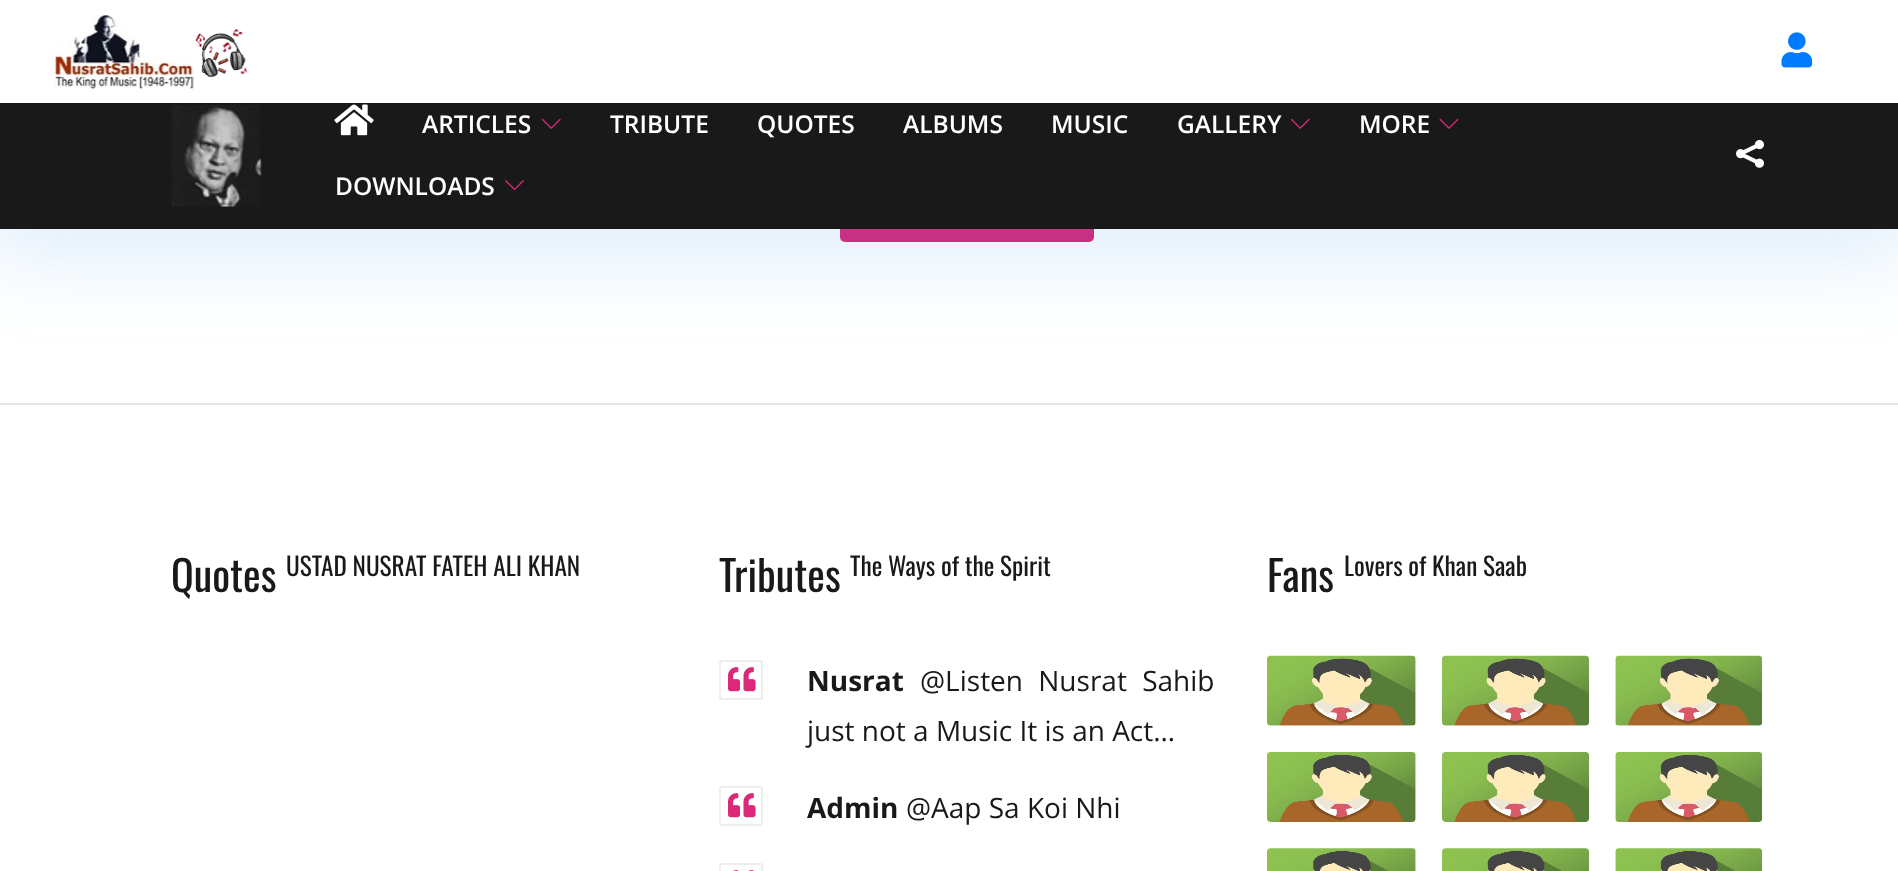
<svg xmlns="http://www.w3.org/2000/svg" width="1898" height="871">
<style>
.a{font:600 24.5px Open Sans;fill:#fff}
.b{font:42px Oswald;fill:#191919}
.c{font:25.25px Oswald;fill:#191919}
.d{font:bold 28px Open Sans;fill:#191919}
.e{font:28px Open Sans;fill:#191919}
</style>
<rect width="100%" height="100%" fill="#fff"/>
<rect fill="#dc2878" x="840" y="161" width="254" height="81" rx="5"/>
<path fill="#1583e926" filter="blur(44px)" d="M-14 -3h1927v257H-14z"/>
<path fill="#191919" d="M0 103h1898v126H0z"/>
<path fill="#fff" d="M0 0h1898v103H0z"/>
<image href="1.png" x="54" y="15" width="140" height="74"/>
<image href="2.png" x="195" y="29" width="52" height="48"/>
<image href="3.png" x="1781" y="32" width="32" height="36"/>
<image href="4.png" x="171" y="105" width="91" height="102"/>
<image href="5.png" x="334" y="104" width="40" height="32"/>
<image href="6.png" x="541" y="118" width="20" height="11"/>
<image href="6.png" x="1290" y="118" width="20" height="11"/>
<image href="7.png" x="1439" y="118" width="20" height="11"/>
<image href="8.png" x="505" y="180" width="19" height="11"/>
<image href="9.png" x="1736" y="140" width="28" height="28"/>
<path fill="#e5e5e5" d="M0 403h1898v2H0z"/>
<rect fill="none" stroke="#eee" stroke-width="2" x="720" y="661" width="42" height="38" rx="1.5"/>
<image href="10.png" x="728" y="667" width="28" height="25"/>
<rect fill="none" stroke="#eee" stroke-width="2" x="720" y="787" width="42" height="38" rx="1.5"/>
<image href="10.png" x="728" y="793" width="28" height="25"/>
<rect fill="none" stroke="#eee" stroke-width="2" x="720" y="864" width="42" height="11" rx="1.5"/>
<image href="11.png" x="733" y="870" width="21" height="1"/>
<image href="12.png" x="1267" y="655" width="149" height="71"/>
<image href="13.png" x="1442" y="655" width="147" height="71"/>
<image href="14.png" x="1615" y="655" width="147" height="71"/>
<image href="15.png" x="1267" y="752" width="149" height="70"/>
<image href="16.png" x="1442" y="752" width="147" height="70"/>
<image href="17.png" x="1615" y="752" width="147" height="70"/>
<image href="18.png" x="1267" y="848" width="149" height="23"/>
<image href="19.png" x="1442" y="848" width="147" height="23"/>
<image href="20.png" x="1615" y="848" width="147" height="23"/>
<text class="a" x="422" y="133">ARTICLES</text>
<text class="a" x="610" y="133">TRIBUTE</text>
<text class="a" x="757" y="133">QUOTES</text>
<text class="a" x="903" y="133">ALBUMS</text>
<text class="a" x="1051" y="133">MUSIC</text>
<text class="a" x="1177" y="133">GALLERY</text>
<text class="a" x="1359" y="133">MORE</text>
<text class="a" x="335" y="195">DOWNLOADS</text>
<text class="b" x="171" y="592">Quotes</text>
<text class="c" x="286" y="576">USTAD NUSRAT FATEH ALI KHAN</text>
<text class="b" x="719" y="592">Tributes</text>
<text class="c" x="850" y="576">The Ways of the Spirit</text>
<text class="d" x="807" y="691">Nusrat</text>
<text class="e" x="920" y="691" word-spacing="8">@Listen Nusrat Sahib</text>
<text class="e" x="807" y="741">just not a Music It is an Act…</text>
<text class="d" x="807" y="818">Admin</text>
<text class="e" x="906" y="818">@Aap Sa Koi Nhi</text>
<text class="b" x="1267" y="592">Fans</text>
<text class="c" x="1344" y="576">Lovers of Khan Saab</text>
</svg>
